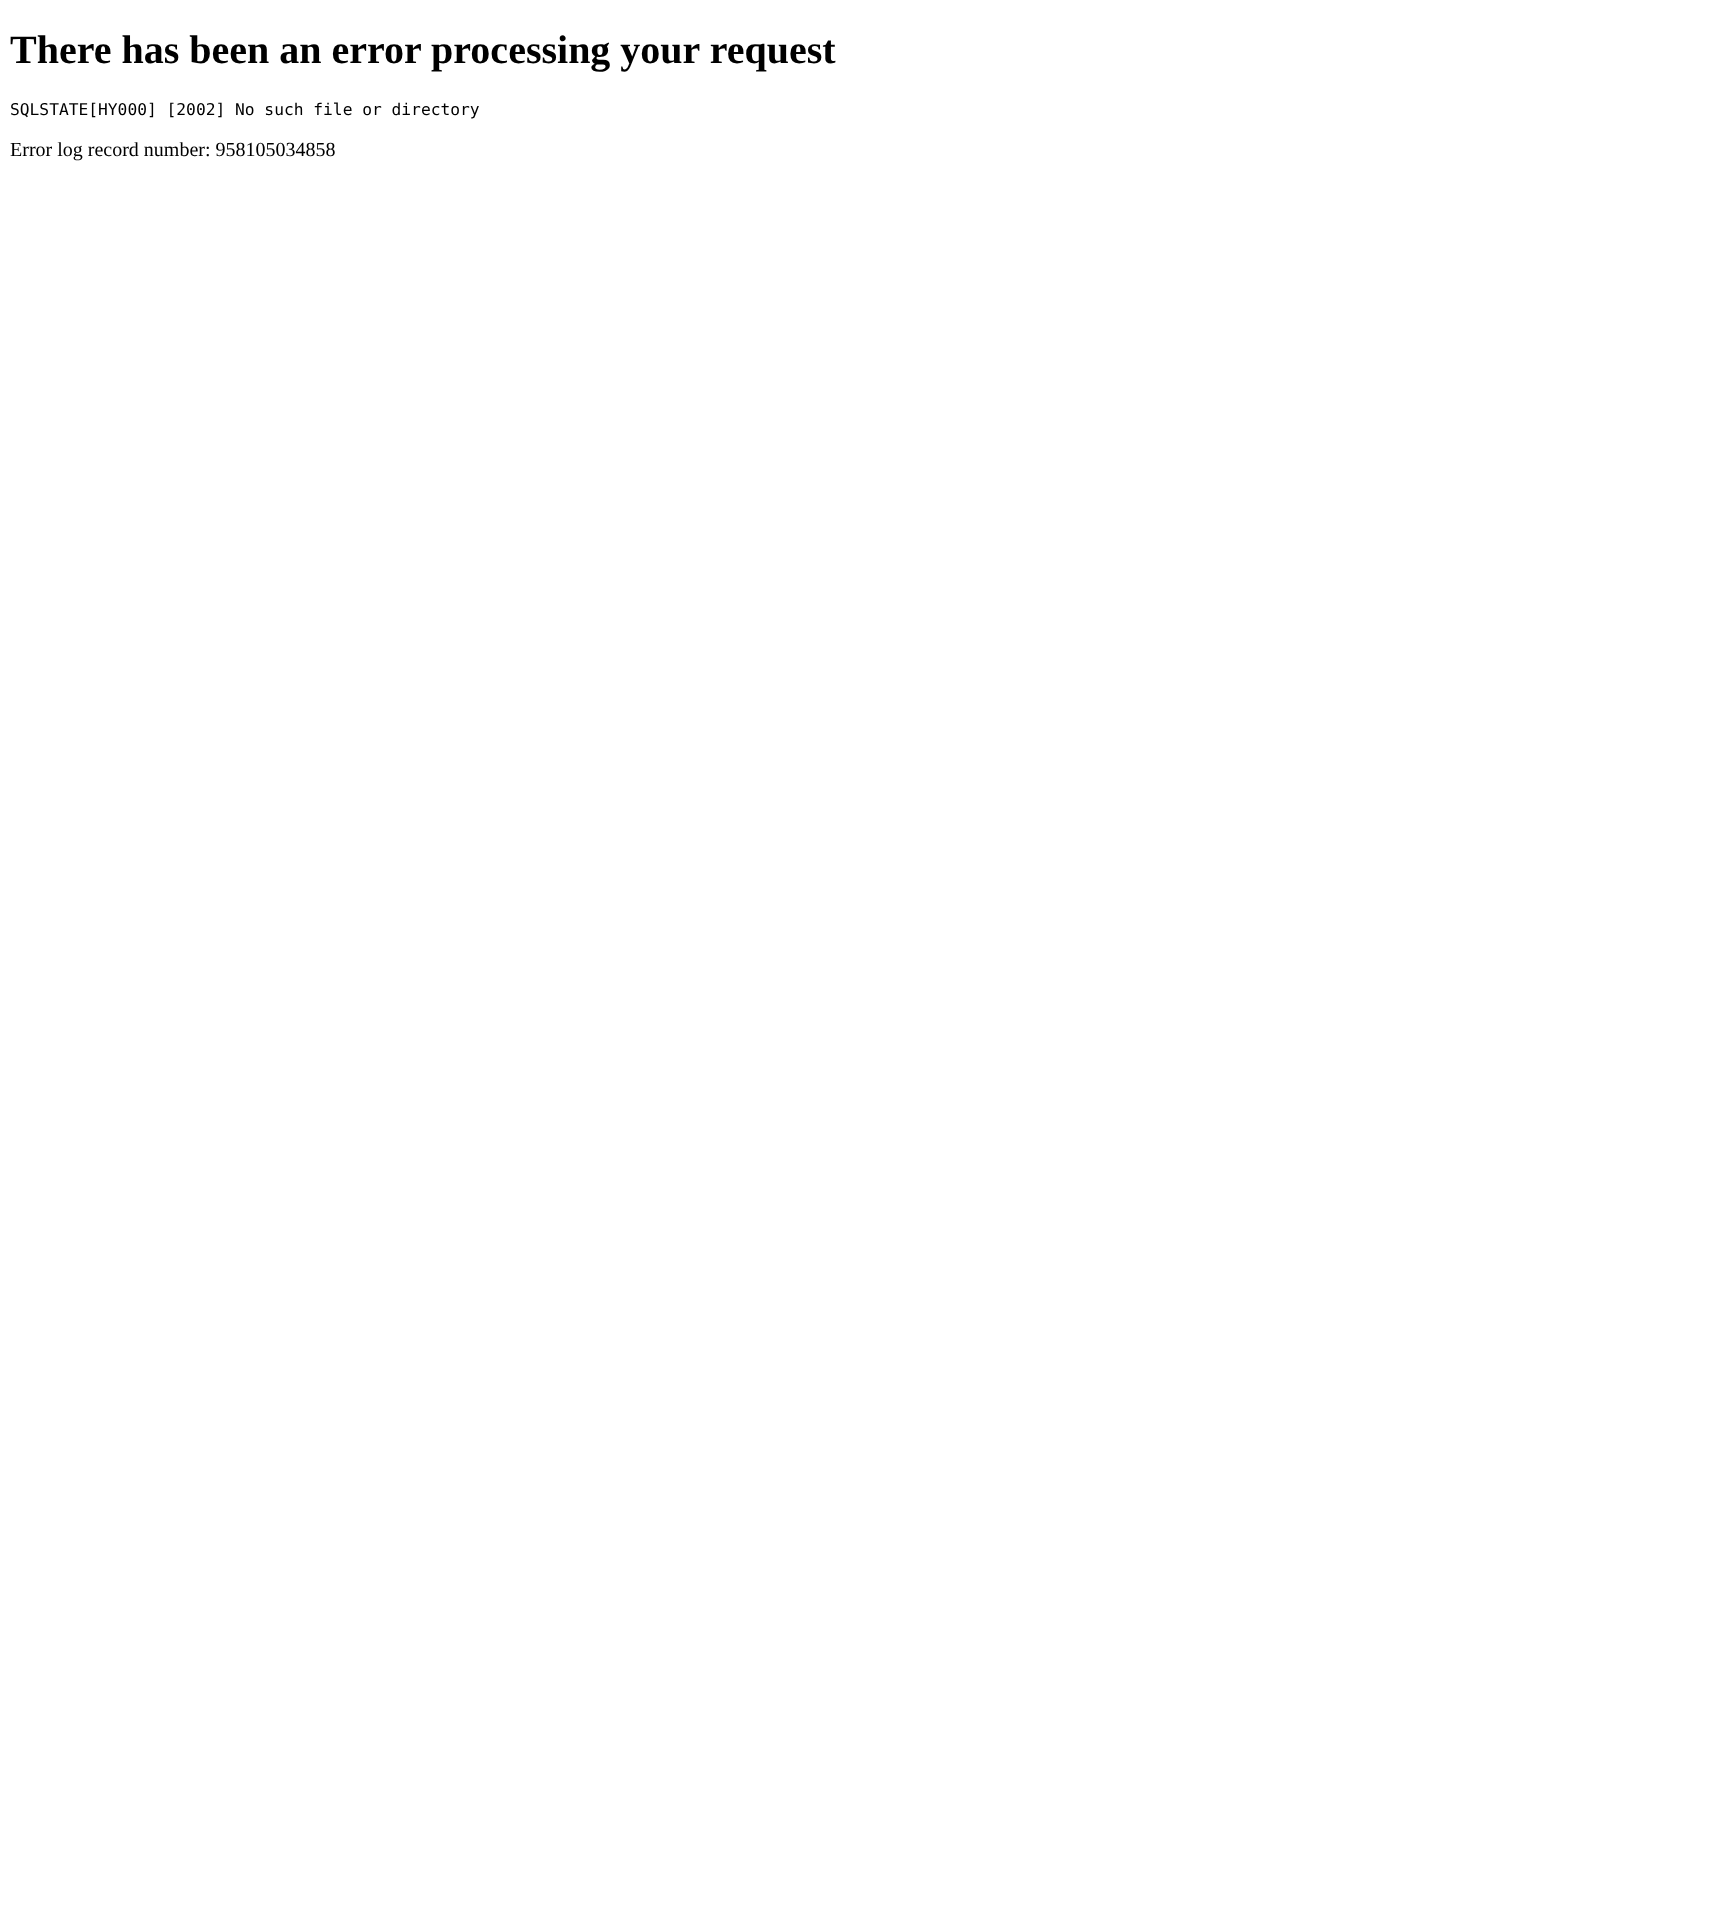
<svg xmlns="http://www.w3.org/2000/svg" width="1728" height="1925">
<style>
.a{font:bold 40px Liberation Serif;fill:#000}
.b{font:16.25px DejaVu Sans Mono;fill:#000}
.c{font:20px Liberation Serif;fill:#000}
</style>
<rect width="100%" height="100%" fill="#fff"/>
<text class="a" x="10" y="63">There has been an error processing your request</text>
<text class="b" x="10" y="115">SQLSTATE[HY000] [2002] No such file or directory</text>
<text class="c" x="10" y="156">Error log record number: 958105034858</text>
</svg>
